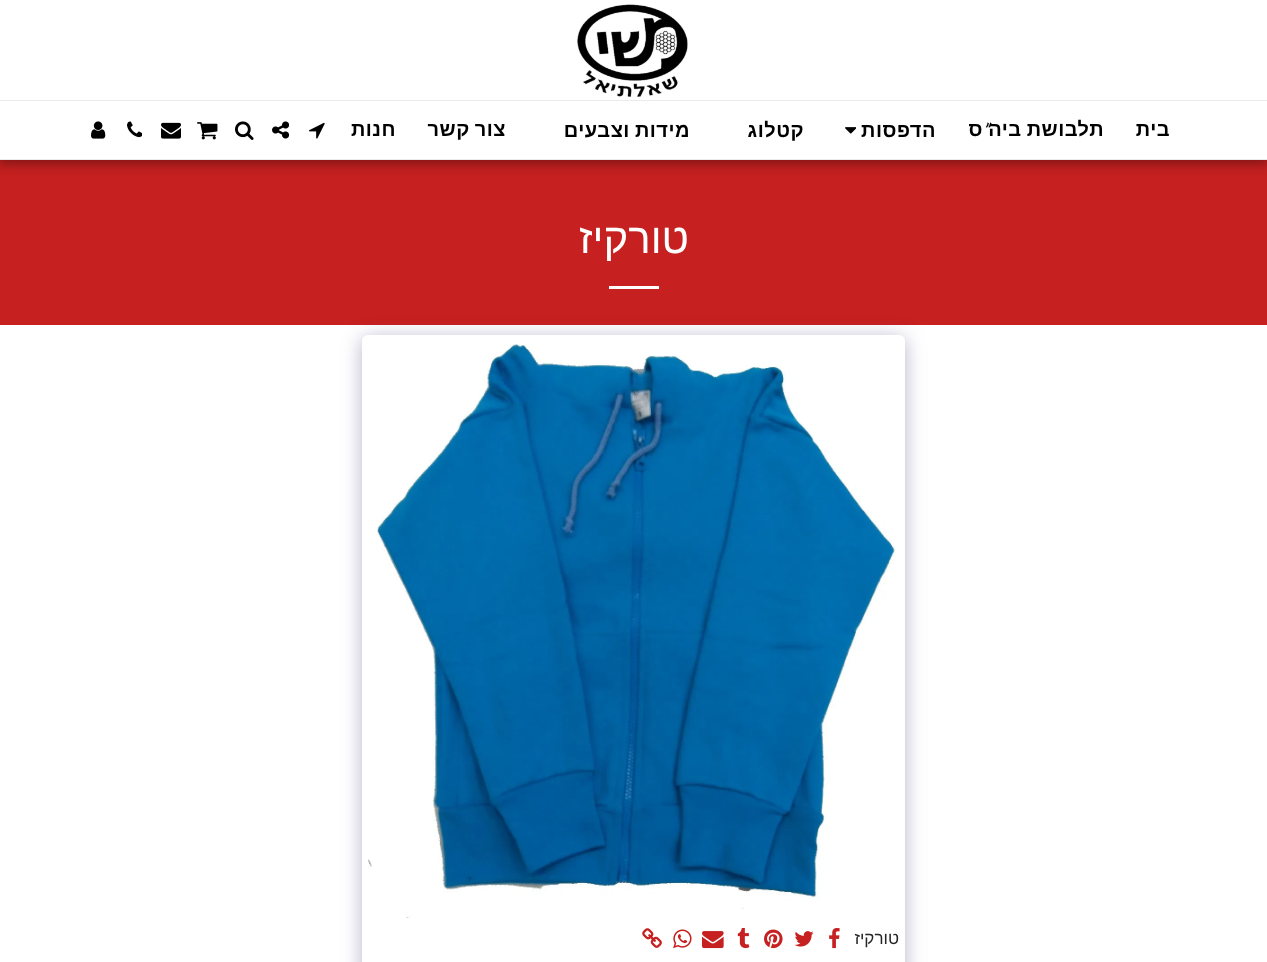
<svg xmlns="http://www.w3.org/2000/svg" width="1267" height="962">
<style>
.a{font:bold 20px Liberation Sans;letter-spacing:0.5px;direction:rtl;fill:#000}
.b{font:bold 20px Caveat;letter-spacing:0.5px;direction:rtl;fill:#000}
.c{font:42px Liberation Sans;direction:rtl;fill:#fff}
.d{font:17px Liberation Sans;direction:rtl;fill:#252525}
</style>
<rect width="100%" height="100%" fill="#fff"/>
<path fill="#c62020" d="M0 160h1267v165H0z"/>
<path fill="#00000059" filter="blur(6px)" d="M-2 0h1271v164H-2z"/>
<path fill="#ebebeb" d="M0 159h1267v1H0z"/>
<path fill="#fff" d="M0 0h1267v100H0z"/>
<image href="1.png" x="577" y="4" width="111" height="93"/>
<path fill="#fff" d="M0 101h1267v58H0z"/>
<path fill="#ebebeb" d="M0 100h1267v1H0z"/>
<image href="2.png" x="845" y="127" width="11" height="7"/>
<image href="3.png" x="309" y="122" width="16" height="17"/>
<image href="4.png" x="272" y="121" width="17" height="18"/>
<image href="5.png" x="235" y="121" width="19" height="19"/>
<image href="6.png" x="197" y="122" width="21" height="18"/>
<image href="7.png" x="161" y="122" width="20" height="17"/>
<image href="8.png" x="127" y="121" width="15" height="17"/>
<image href="9.png" x="91" y="121" width="15" height="18"/>
<path fill="#fff" d="M609 286h50v3H609z"/>
<rect fill="#4d3f7a66" filter="blur(10px)" x="362" y="338" width="543" height="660" rx="6"/>
<rect fill="#fff" x="362" y="335" width="543" height="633" rx="6"/>
<image href="10.png" x="368" y="344" width="528" height="574"/>
<image href="11.png" x="829" y="928" width="11" height="21"/>
<image href="12.png" x="794" y="931" width="20" height="16"/>
<image href="13.png" x="764" y="929" width="19" height="20"/>
<image href="14.png" x="737" y="928" width="13" height="21"/>
<image href="15.png" x="702" y="931" width="22" height="18"/>
<image href="16.png" x="673" y="929" width="19" height="20"/>
<image href="17.png" x="642" y="928" width="20" height="20"/>
<text class="a" x="1170" y="136">בית</text>
<text class="b" x="988" y="136">"</text>
<text class="a" x="1104" y="136" word-spacing="-1">תלבושת ביה</text>
<text class="a" x="983" y="136">ס</text>
<text class="a" x="936" y="137">הדפסות</text>
<text class="a" x="804" y="137">קטלוג</text>
<text class="a" x="690" y="137" word-spacing="-1">מידות וצבעים</text>
<text class="a" x="506" y="136" word-spacing="-1">צור קשר</text>
<text class="a" x="396" y="136">חנות</text>
<text class="c" x="689" y="253">טורקיז</text>
<text class="d" x="899" y="944">טורקיז</text>
</svg>
